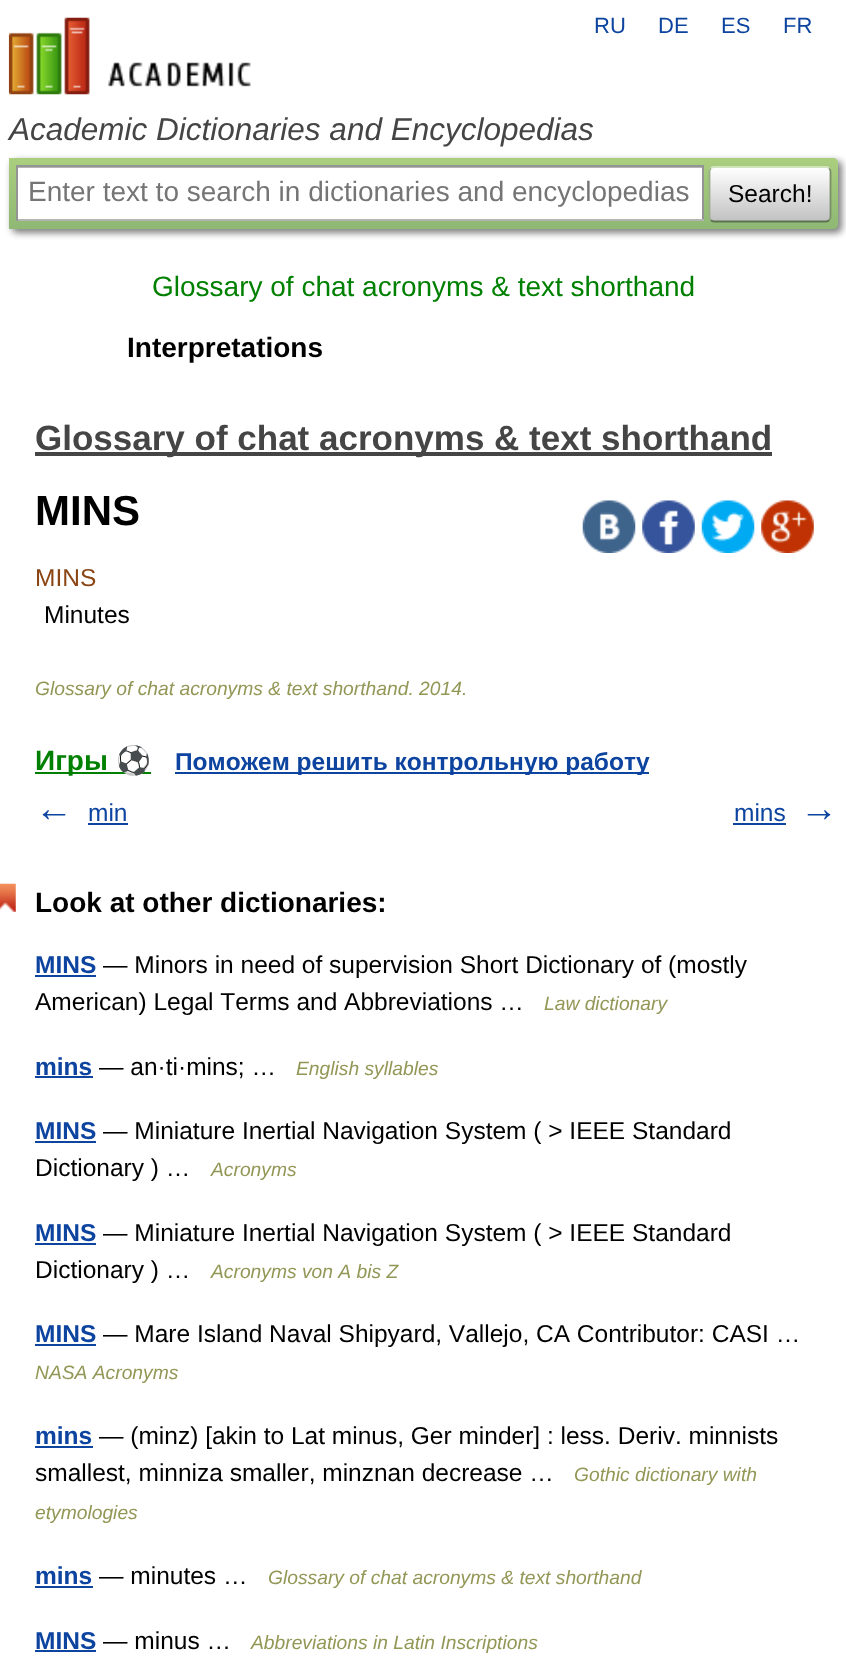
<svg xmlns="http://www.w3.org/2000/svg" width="846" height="1673">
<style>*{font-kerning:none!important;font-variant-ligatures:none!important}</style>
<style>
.a{font:22px Liberation Sans;fill:#0d44a0}
.b{font:italic 31.5px Liberation Sans;fill:#454545}
.c{font:28px Liberation Sans;fill:#757575}
.d{font:24.5px Liberation Sans;fill:#000}
.e{font:28px Liberation Sans;fill:#008000}
.f{font:bold 28px Liberation Sans;fill:#000}
.g{font:bold 35px Liberation Sans;fill:#454545}
.h{font:bold 42px Liberation Sans;fill:#000}
.i{font:24.5px Liberation Sans;fill:#8b4513}
.j{font:italic 19.25px Liberation Sans;fill:#939756}
.k{font:bold 28px Liberation Sans;fill:#008000}
.l{font:bold 28px Noto Color Emoji;fill:#008000}
.m{font:bold 24.5px Liberation Sans;fill:#0d44a0}
.n{font:bold 38px Liberation Sans;fill:#0d44a0}
.o{font:24.5px Liberation Sans;fill:#0d44a0}
</style>
<defs>
<linearGradient id="g1" gradientUnits="userSpaceOnUse" x1="424" y1="157" x2="424" y2="229"><stop offset="0" stop-color="#abcf7e"/><stop offset="1" stop-color="#8eb874"/></linearGradient>
<clipPath id="clip1"><rect x="709" y="166" width="122" height="56" rx="5"/></clipPath>
<linearGradient id="g2" gradientUnits="userSpaceOnUse" x1="770" y1="116" x2="770" y2="168"><stop offset="0" stop-color="#fff"/><stop offset="1" stop-color="#c1c1c1"/></linearGradient>
<linearGradient id="g3" gradientUnits="userSpaceOnUse" x1="770" y1="168" x2="770" y2="221"><stop offset="0" stop-color="#fff"/><stop offset="1" stop-color="#c1c1c1"/></linearGradient>
</defs>
<rect width="100%" height="100%" fill="#fff"/>
<image href="1.png" x="8" y="17" width="243" height="78"/>
<rect fill="#00000080" filter="blur(3.5px)" x="12" y="161" width="830" height="72" rx="5"/>
<path fill="url(#g1)" d="M9 158h824c3 0 5 2 5 5v61c0 3-2 5-5 5h-824z"/>
<path fill="#fff" d="M18 168h684v51H18z"/>
<path fill="#b3b3b3" d="M18 167h684v1H18z"/>
<path fill="#949494" d="M16 165h688v2H16z"/>
<path fill="#949494" d="M702 165h2v56H702z"/>
<path fill="#b4b4b4" d="M16 219h688v2H16z"/>
<path fill="#949494" d="M16 165h2v56H16z"/>
<g clip-path="url(#clip1)">
<path fill="url(#g2)" d="M709 166h122v2H709z"/>
<path fill="url(#g3)" d="M709 168h122v53H709z"/>
</g>
<path fill="none" stroke="#d1e4bc" stroke-width="1.8" d="M711 168.5c.5-1 2-1.5 3-1.5h112c1 0 2.5 .5 3 1.5"/>
<path fill="none" stroke="#7a8e69" stroke-width="1.8" d="M829 168.5c1 .5 1.5 2 1.5 3v45.5c0 1-.5 2.5-1.5 3"/>
<path fill="none" stroke="#5d7250" stroke-width="1.8" d="M829 220c-.5 1-2 1.5-3 1.5h-112c-1 0-2.5-.5-3-1.5"/>
<path fill="none" stroke="#9aae89" stroke-width="1.8" d="M711 220c-1-.5-1.5-2-1.5-3v-45.5c0-1 .5-2.5 1.5-3"/>
<path fill="#454545" d="M35 452h737v4H35z"/>
<image href="2.png" x="582" y="500" width="54" height="53"/>
<image href="3.png" x="642" y="500" width="53" height="53"/>
<image href="4.png" x="701" y="500" width="54" height="53"/>
<image href="5.png" x="761" y="500" width="53" height="53"/>
<path fill="#008000" d="M35 772h116v2H35z"/>
<path fill="#0d44a0" d="M175 772h474v2H175z"/>
<path fill="#0d44a0" d="M88 823h40v2H88z"/>
<path fill="#0d44a0" d="M733 823h53v2H733z"/>
<image href="6.png" x="0" y="883" width="16" height="29"/>
<path fill="#0d44a0" d="M35 975h61v2H35z"/>
<path fill="#0d44a0" d="M35 1076h58v2H35z"/>
<path fill="#0d44a0" d="M35 1141h61v2H35z"/>
<path fill="#0d44a0" d="M35 1243h61v2H35z"/>
<path fill="#0d44a0" d="M35 1344h61v2H35z"/>
<path fill="#0d44a0" d="M35 1446h58v2H35z"/>
<path fill="#0d44a0" d="M35 1586h58v2H35z"/>
<path fill="#0d44a0" d="M35 1650h61v2H35z"/>
<text class="a" x="594" y="33">RU</text>
<text class="a" x="658" y="33">DE</text>
<text class="a" x="721" y="33">ES</text>
<text class="a" x="783" y="33">FR</text>
<text class="b" x="9" y="140">Academic Dictionaries and Encyclopedias</text>
<text class="c" x="28" y="201">Enter text to search in dictionaries and encyclopedias</text>
<text class="d" x="728" y="202">Search!</text>
<text class="e" x="152" y="296">Glossary of chat acronyms &amp; text shorthand</text>
<text class="f" x="127" y="357">Interpretations</text>
<text class="g" x="35" y="450">Glossary of chat acronyms &amp; text shorthand</text>
<text class="h" x="35" y="525">MINS</text>
<text class="i" x="35" y="586">MINS</text>
<text class="d" x="44" y="623">Minutes</text>
<text class="j" x="35" y="695">Glossary of chat acronyms &amp; text shorthand. 2014.</text>
<text class="k" x="35" y="770">Игры</text>
<text class="l" x="116" y="770">⚽</text>
<text class="m" x="175" y="770">Поможем решить контрольную работу</text>
<text class="n" x="35" y="821">←</text>
<text class="o" x="88" y="821">min</text>
<text class="o" x="734" y="821">mins</text>
<text class="n" x="800" y="821">→</text>
<text class="f" x="35" y="912">Look at other dictionaries:</text>
<text class="m" x="35" y="973">MINS</text>
<text class="d" x="103" y="973">— Minors in need of supervision Short Dictionary of (mostly</text>
<text class="d" x="35" y="1010">American) Legal Terms and Abbreviations …</text>
<text class="j" x="544" y="1010">Law dictionary</text>
<text class="m" x="35" y="1075">mins</text>
<text class="d" x="99" y="1075">— an·ti·mins; …</text>
<text class="j" x="296" y="1075">English syllables</text>
<text class="m" x="35" y="1139">MINS</text>
<text class="d" x="103" y="1139">— Miniature Inertial Navigation System ( &gt; IEEE Standard</text>
<text class="d" x="35" y="1176">Dictionary ) …</text>
<text class="j" x="211" y="1176">Acronyms</text>
<text class="m" x="35" y="1241">MINS</text>
<text class="d" x="103" y="1241">— Miniature Inertial Navigation System ( &gt; IEEE Standard</text>
<text class="d" x="35" y="1278">Dictionary ) …</text>
<text class="j" x="211" y="1278">Acronyms von A bis Z</text>
<text class="m" x="35" y="1342">MINS</text>
<text class="d" x="103" y="1342">— Mare Island Naval Shipyard, Vallejo, CA Contributor: CASI …</text>
<text class="j" x="35" y="1379">NASA Acronyms</text>
<text class="m" x="35" y="1444">mins</text>
<text class="d" x="99" y="1444">— (minz) [akin to Lat minus, Ger minder] : less. Deriv. minnists</text>
<text class="d" x="35" y="1481">smallest, minniza smaller, minznan decrease …</text>
<text class="j" x="574" y="1481">Gothic dictionary with</text>
<text class="j" x="35" y="1519">etymologies</text>
<text class="m" x="35" y="1584">mins</text>
<text class="d" x="99" y="1584">— minutes …</text>
<text class="j" x="268" y="1584">Glossary of chat acronyms &amp; text shorthand</text>
<text class="m" x="35" y="1649">MINS</text>
<text class="d" x="103" y="1649">— minus …</text>
<text class="j" x="251" y="1649">Abbreviations in Latin Inscriptions</text>
</svg>
